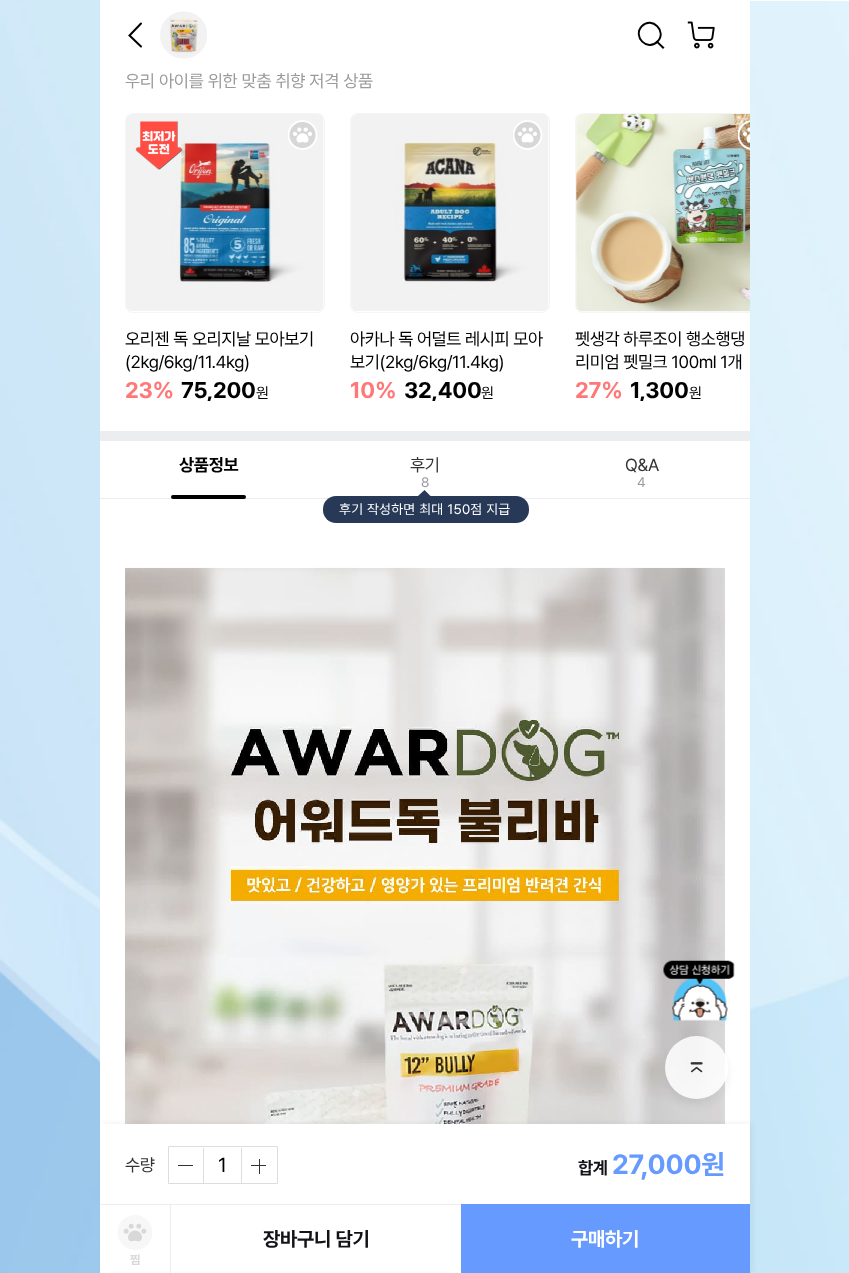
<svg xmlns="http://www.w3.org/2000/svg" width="849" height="1273">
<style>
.a{font:17.5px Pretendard;letter-spacing:-0.25px;fill:#9a9a9a}
.b{font:17.5px Pretendard;letter-spacing:-0.4px;fill:#000}
.c{font:bold 22.5px Pretendard;letter-spacing:-0.25px;fill:#f77}
.d{font:bold 22.5px Pretendard;letter-spacing:-0.25px;fill:#000}
.e{font:15px Pretendard;letter-spacing:-0.25px;fill:#000}
.f{font:bold 17.5px Pretendard;letter-spacing:-0.25px;fill:#000}
.g{font:17.5px Pretendard;letter-spacing:-0.25px;fill:#333}
.h{font:13.75px Pretendard;letter-spacing:-0.25px;fill:#9a9a9a}
.i{font:13.75px Pretendard;letter-spacing:0.25px;fill:#fff}
.j{font:20px Pretendard;letter-spacing:-0.25px;fill:#000}
.k{font:bold 17.5px Pretendard;letter-spacing:-0.25px;fill:#121217}
.l{font:bold 27.5px Pretendard;letter-spacing:-0.25px;fill:#669aff}
.m{font:bold 20px Pretendard;letter-spacing:-0.25px;fill:#121217}
.n{font:bold 20px Pretendard;letter-spacing:-0.25px;fill:#fff}
.o{font:bold 12px Pretendard;letter-spacing:-0.25px;fill:#d8d8d8}
</style>
<defs>
<clipPath id="clip1"><path d="M100 113h650v288H100z"/></clipPath>
<clipPath id="clip2"><path d="M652 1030h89v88h-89zm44.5 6c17.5 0 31.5 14 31.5 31.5c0 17.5-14 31.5-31.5 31.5c-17.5 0-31.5-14-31.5-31.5c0-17.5 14-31.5 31.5-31.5z" clip-rule="evenodd"/></clipPath>
</defs>
<rect width="100%" height="100%" fill="#fff"/>
<image href="1.png" x="0" y="0" width="849" height="1273"/>
<path fill="#fff" d="M100 0h749v1H100z"/>
<path fill="#fff" d="M100 1h650v1123H100z"/>
<path fill="none" stroke="#000" stroke-width="2" stroke-linecap="round" d="M141 23.5l-11.5 12l11.5 11"/>
<image href="2.png" x="160" y="11" width="47" height="48"/>
<path fill="none" stroke="#000" stroke-width="1.9" d="M642 26c10-10 25.5 5.5 15.5 15.5c-10 10.5-25.5-5-15.5-15.5z"/>
<path fill="#000" fill-rule="evenodd" d="M656 42l1-1.5l7.5 7l-1.5 1.5z"/>
<image href="3.png" x="687" y="21" width="28" height="28"/>
<rect fill="none" stroke="#f5f5f5" x="125.5" y="113.5" width="199" height="199" rx="7.5"/>
<image href="4.png" x="126" y="114" width="198" height="197"/>
<image href="5.png" x="135" y="121" width="48" height="49"/>
<image href="6.png" x="288" y="120" width="30" height="30"/>
<rect fill="none" stroke="#f5f5f5" x="350.5" y="113.5" width="199" height="199" rx="7.5"/>
<image href="7.png" x="351" y="114" width="198" height="197"/>
<image href="6.png" x="513" y="120" width="30" height="30"/>
<g clip-path="url(#clip1)">
<rect fill="none" stroke="#f5f5f5" x="575.5" y="113.5" width="199" height="199" rx="7.5"/>
</g>
<image href="8.png" x="576" y="114" width="174" height="198"/>
<image href="9.png" x="738" y="120" width="12" height="30"/>
<path fill="#ecedef" d="M100 431h650v10H100z"/>
<path fill="#ecedef" d="M100 498h650v1H100z"/>
<rect fill="#000" x="171" y="495" width="75" height="4" rx="2"/>
<rect fill="#273957" x="323" y="496" width="206" height="27" rx="13"/>
<path fill="#273957" d="M430.5 496h-12.5l6.5-6z"/>
<image href="10.png" x="125" y="567" width="600" height="557"/>
<image href="11.png" x="663" y="960" width="72" height="61"/>
<g clip-path="url(#clip2)">
<rect fill="#0000000f" filter="blur(4px)" x="665" y="1043" width="63" height="62" rx="31"/>
</g>
<circle fill="#ffffffd9" cx="696.5" cy="1067.5" r="31.5"/>
<image href="12.png" x="690" y="1062" width="13" height="11"/>
<path fill="#0000000d" filter="blur(2.5px)" d="M103 1123h650v150H103z"/>
<path fill="#fff" d="M100 1124h650v149H100z"/>
<path fill="none" stroke="#ddd" d="M168.5 1146.5h109v37H168.5z"/>
<path fill="#ddd" d="M203 1148h1v35H203z"/>
<path fill="#333" d="M178 1165h15v1H178z"/>
<path fill="#ddd" d="M241 1148h1v35H241z"/>
<path fill="#333" d="M251 1165h15v1H251z"/>
<path fill="#333" d="M259 1159h1v15H259z"/>
<path fill="#669aff" d="M461 1204h289v69H461z"/>
<image href="13.png" x="118" y="1215" width="34" height="35"/>
<path fill="#ecedef" d="M100 1204h361v1H100z"/>
<path fill="#ecedef" d="M170 1204h1v69H170z"/>
<text class="a" x="125" y="87">우리 아이를 위한 맞춤 취향 저격 상품</text>
<text class="b" x="125" y="345">오리젠 독 오리지날 모아보기</text>
<text class="b" x="125" y="368">(2kg/6kg/11.4kg)</text>
<text class="c" x="125" y="398">23%</text>
<g clip-path="url(#clip1)">
<text class="d" x="181" y="398">75,200</text>
</g>
<text class="e" x="256" y="398">원</text>
<text class="b" x="350" y="345">아카나 독 어덜트 레시피 모아</text>
<text class="b" x="350" y="368">보기(2kg/6kg/11.4kg)</text>
<text class="c" x="350" y="398">10%</text>
<g clip-path="url(#clip1)">
<text class="d" x="404" y="398">32,400</text>
</g>
<text class="e" x="481" y="398">원</text>
<text class="b" x="575" y="345">펫생각 하루조이 행소행댕</text>
<text class="b" x="575" y="368">리미엄 펫밀크 100ml 1개</text>
<text class="c" x="575" y="398">27%</text>
<g clip-path="url(#clip1)">
<text class="d" x="630" y="398">1,300</text>
</g>
<text class="e" x="689" y="398">원</text>
<text class="f" x="179" y="471">상품정보</text>
<text class="g" x="410" y="471">후기</text>
<text class="h" x="421" y="487">8</text>
<text class="i" x="339" y="514">후기 작성하면 최대 150점 지급</text>
<text class="g" x="625" y="471">Q&amp;A</text>
<text class="h" x="637" y="487">4</text>
<text class="g" x="125" y="1171">수량</text>
<text class="j" x="218" y="1172">1</text>
<text class="k" x="578" y="1174">합계</text>
<text class="l" x="612" y="1174">27,000원</text>
<text class="m" x="263" y="1246">장바구니 담기</text>
<text class="n" x="571" y="1246">구매하기</text>
<text class="o" x="130" y="1264">찜</text>
</svg>
